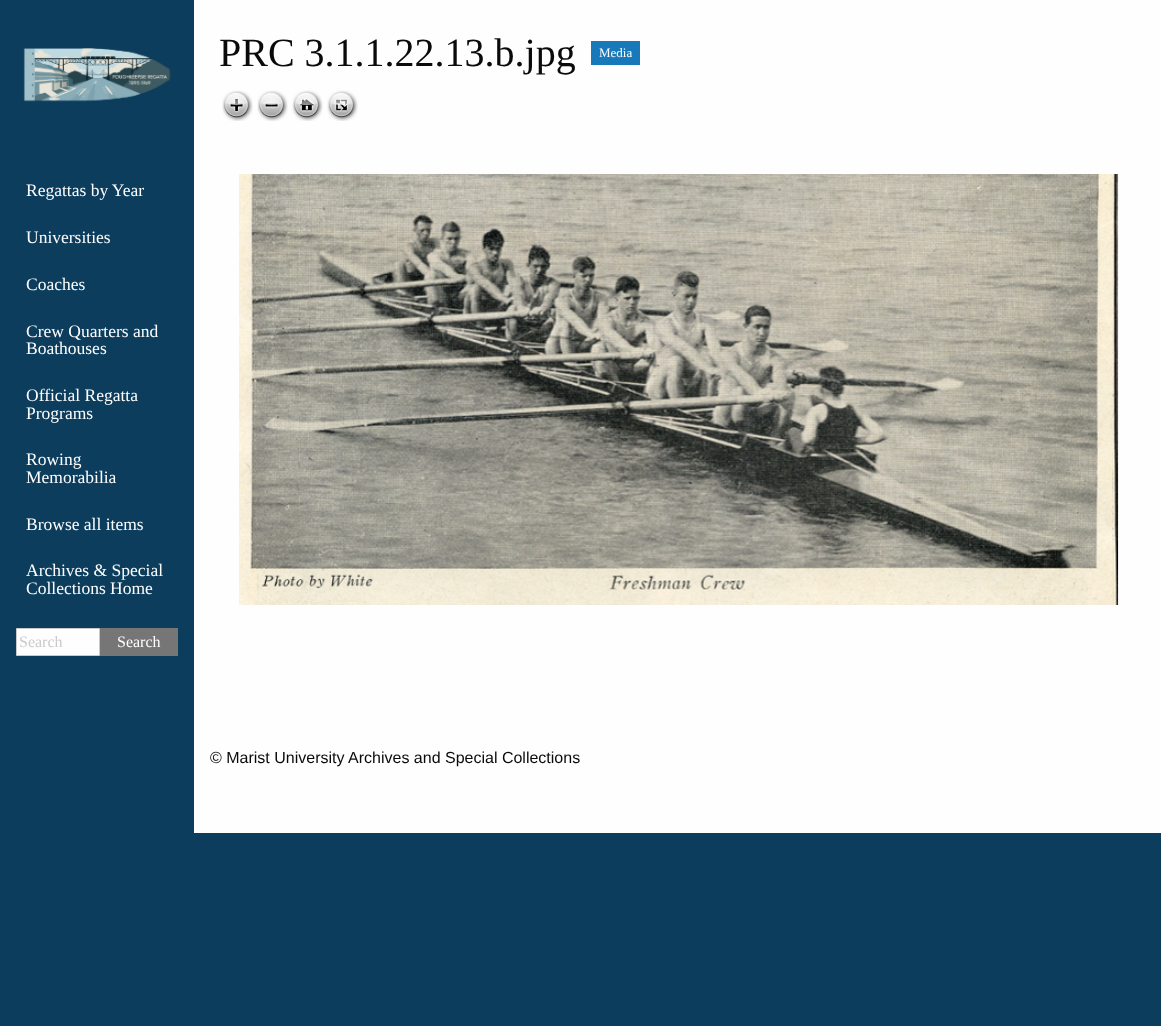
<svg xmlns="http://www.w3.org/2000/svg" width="1161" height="1026">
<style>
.a{font:40px Liberation Serif;fill:#0a0a0a}
.b{font:13px Liberation Serif;fill:#fefefe}
.c{font:17.5px Liberation Serif;fill:#fefefe}
.d{font:16px Liberation Serif;fill:#cacaca}
.e{font:16px Liberation Serif;fill:#fefefe}
.f{font:16px Liberation Sans;fill:#0a0a0a}
</style>
<rect width="100%" height="100%" fill="#0c3d5d"/>
<path fill="#fefefe" d="M194 0h967v833H194z"/>
<path fill="#1779ba" d="M591 41h49v24H591z"/>
<image href="1.png" x="222" y="90" width="31" height="31"/>
<image href="2.png" x="223" y="91" width="29" height="30"/>
<image href="3.png" x="257" y="90" width="31" height="31"/>
<image href="4.png" x="258" y="91" width="29" height="30"/>
<image href="5.png" x="292" y="90" width="31" height="31"/>
<image href="6.png" x="293" y="91" width="29" height="30"/>
<image href="7.png" x="327" y="90" width="31" height="31"/>
<image href="8.png" x="328" y="91" width="29" height="30"/>
<image href="9.png" x="239" y="174" width="880" height="431"/>
<image href="10.png" x="23" y="48" width="148" height="54"/>
<path fill="#fefefe" stroke="#cacaca" d="M16.5 628.5h83v27H16.5z"/>
<path fill="#767676" d="M100 628h78v28H100z"/>
<text class="a" x="219" y="66">PRC 3.1.1.22.13.b.jpg</text>
<text class="b" x="599" y="57">Media</text>
<text class="c" x="26" y="196">Regattas by Year</text>
<text class="c" x="26" y="243">Universities</text>
<text class="c" x="26" y="290">Coaches</text>
<text class="c" x="26" y="337">Crew Quarters and</text>
<text class="c" x="26" y="354">Boathouses</text>
<text class="c" x="26" y="401">Official Regatta</text>
<text class="c" x="26" y="419">Programs</text>
<text class="c" x="26" y="465">Rowing</text>
<text class="c" x="26" y="483">Memorabilia</text>
<text class="c" x="26" y="530">Browse all items</text>
<text class="c" x="26" y="576">Archives &amp; Special</text>
<text class="c" x="26" y="594">Collections Home</text>
<text class="d" x="19" y="647">Search</text>
<text class="e" x="117" y="647">Search</text>
<text class="f" x="210" y="763">© Marist University Archives and Special Collections</text>
</svg>
